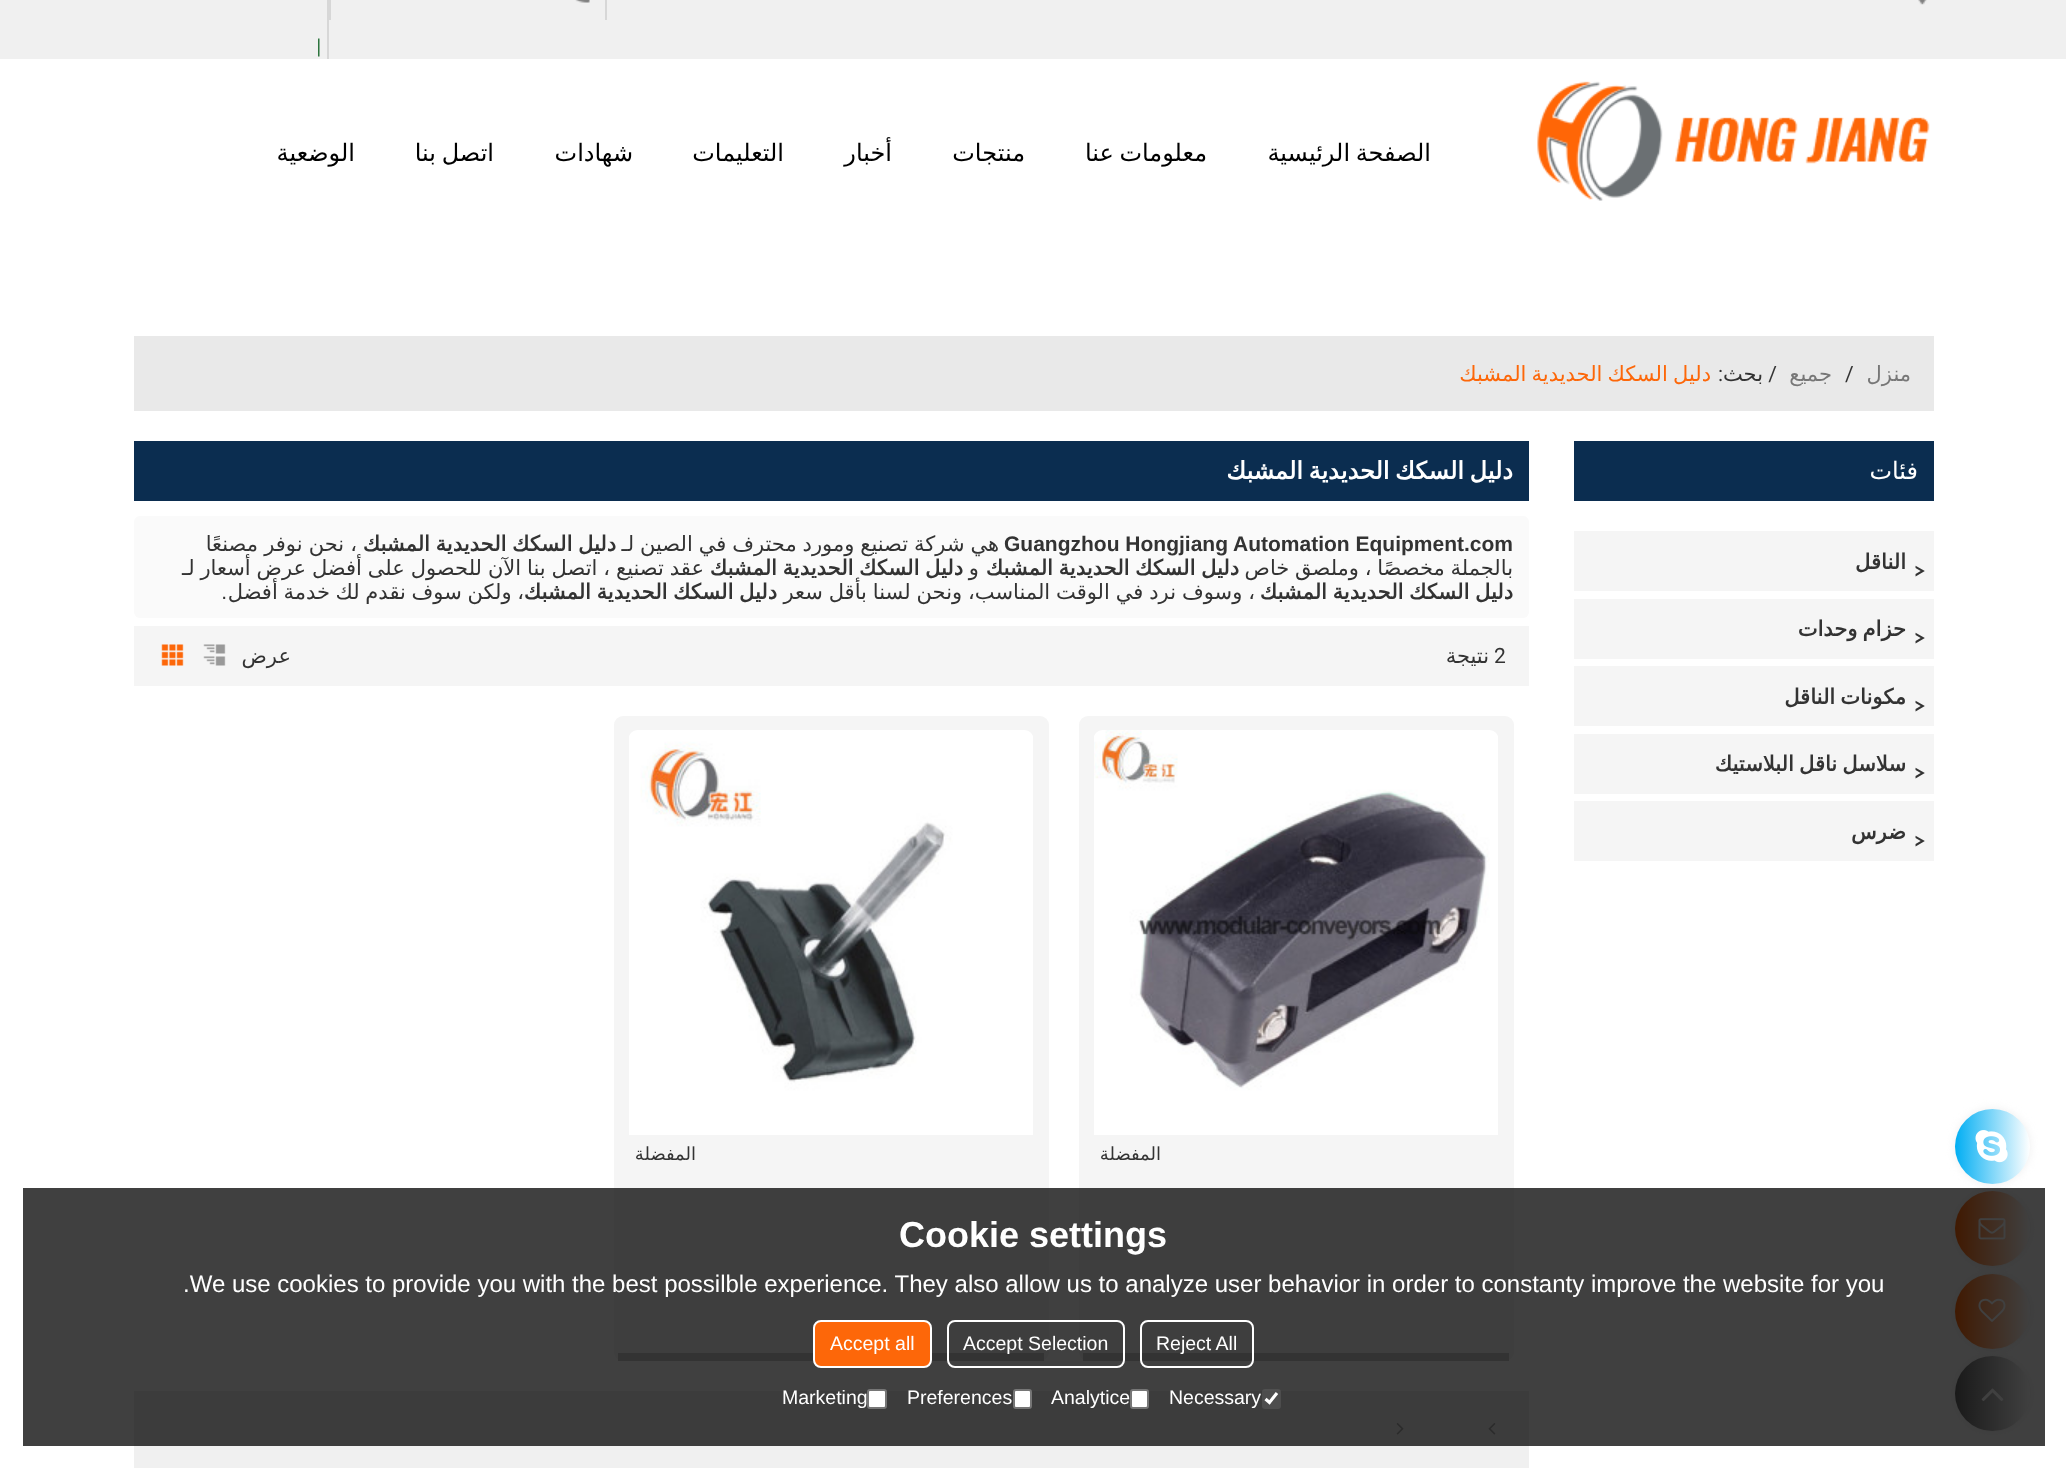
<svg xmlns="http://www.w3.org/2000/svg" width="2066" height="1468">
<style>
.a{font:24px DejaVu Sans;direction:rtl;fill:#000}
.b{font:21px DejaVu Sans;direction:rtl;fill:#777}
.c{font:21px Roboto;fill:#333}
.d{font:21px Roboto;direction:rtl;fill:#333}
.e{font:21px DejaVu Sans;direction:rtl;fill:#333}
.f{font:21px DejaVu Sans;direction:rtl;fill:#fd6709}
.g{font:24px DejaVu Sans;direction:rtl;fill:#fff}
.h{font:500 21px Josefin Sans;fill:#333}
.i{font:bold 21px DejaVu Sans;direction:rtl;fill:#333}
.j{font:bold 24px DejaVu Sans;direction:rtl;fill:#fff}
.k{font:bold 21px Liberation Sans;fill:#333}
.l{font:21px Liberation Sans;direction:rtl;fill:#333}
.m{font:18px DejaVu Sans;direction:rtl;fill:#333}
.n{font:bold 36px Liberation Sans;fill:#fff}
.o{font:24px Liberation Sans;fill:#fff}
.p{font:19.5px Liberation Sans;fill:#fff}
</style>
<defs>
<linearGradient id="g1" gradientUnits="userSpaceOnUse" x1="1955" y1="1146" x2="2030" y2="1146"><stop offset="0" stop-color="#01aef3"/><stop offset="1" stop-color="#fff"/></linearGradient>
<linearGradient id="g2" gradientUnits="userSpaceOnUse" x1="1955" y1="1229" x2="2030" y2="1229"><stop offset="0" stop-color="#fd6709"/><stop offset="1" stop-color="#fff"/></linearGradient>
<linearGradient id="g3" gradientUnits="userSpaceOnUse" x1="1955" y1="1311" x2="2030" y2="1311"><stop offset="0" stop-color="#fd6709"/><stop offset="1" stop-color="#fff"/></linearGradient>
<linearGradient id="g4" gradientUnits="userSpaceOnUse" x1="1955" y1="1394" x2="2030" y2="1394"><stop offset="0" stop-color="#666"/><stop offset="1" stop-color="#fff"/></linearGradient>
<clipPath id="clip1"><path d="M149 456h1365v30H149z"/></clipPath>
</defs>
<rect width="100%" height="100%" fill="#fff"/>
<path fill="#f0f0f0" d="M0 0h2066v59H0z"/>
<image href="1.png" x="1918" y="0" width="9" height="5"/>
<path fill="#d7d7d7" d="M605 0h2v20H605z"/>
<path fill="#d7d7d7" d="M329 0h2v20H329z"/>
<image href="2.png" x="575" y="0" width="15" height="3"/>
<path fill="#d7d7d7" d="M327 0h2v59H327z"/>
<image href="3.png" x="318" y="38" width="2" height="19"/>
<image href="4.png" x="1537" y="81" width="393" height="120"/>
<path fill="#e9e9e9" d="M134 336h1800v75H134z"/>
<path fill="#0b2d50" d="M1574 441h360v60H1574z"/>
<path fill="#f5f5f5" d="M1574 531h360v60H1574z"/>
<path fill="#f5f5f5" d="M1574 599h360v60H1574z"/>
<path fill="#f5f5f5" d="M1574 666h360v60H1574z"/>
<path fill="#f5f5f5" d="M1574 734h360v60H1574z"/>
<path fill="#f5f5f5" d="M1574 801h360v60H1574z"/>
<path fill="#0b2d50" d="M134 441h1395v60H134z"/>
<rect fill="#fafafa" x="134" y="516" width="1395" height="102" rx="6"/>
<path fill="#f5f5f5" d="M134 626h1395v60H134z"/>
<image href="5.png" x="203" y="644" width="23" height="22"/>
<image href="6.png" x="161" y="644" width="23" height="22"/>
<rect fill="#f5f5f5" x="1079" y="716" width="435" height="645" rx="9"/>
<path fill="#ccc" d="M1083 1353h426v8H1083z"/>
<image href="7.png" x="1094" y="730" width="404" height="405"/>
<rect fill="#f5f5f5" x="614" y="716" width="435" height="645" rx="9"/>
<path fill="#ccc" d="M618 1353h426v8H618z"/>
<image href="8.png" x="629" y="730" width="404" height="405"/>
<path fill="#f0f0f0" d="M134 1391h1395v77H134z"/>
<image href="9.png" x="1488" y="1423" width="8" height="12"/>
<image href="10.png" x="1396" y="1423" width="8" height="12"/>
<rect fill="#eee" filter="blur(4px)" x="1955" y="1109" width="75" height="75" rx="37.5"/>
<circle fill="url(#g1)" cx="1992.5" cy="1146.5" r="37.5"/>
<image href="11.png" x="1975" y="1130" width="33" height="33"/>
<rect fill="#eee" filter="blur(4px)" x="1955" y="1191" width="75" height="75" rx="37.5"/>
<circle fill="url(#g2)" cx="1992.5" cy="1228.5" r="37.5"/>
<image href="12.png" x="1978" y="1218" width="28" height="22"/>
<rect fill="#eee" filter="blur(4px)" x="1955" y="1274" width="75" height="75" rx="37.5"/>
<circle fill="url(#g3)" cx="1992.5" cy="1311.5" r="37.5"/>
<image href="13.png" x="1978" y="1298" width="28" height="24"/>
<rect fill="#eee" filter="blur(4px)" x="1955" y="1356" width="75" height="75" rx="37.5"/>
<circle fill="url(#g4)" cx="1992.5" cy="1393.5" r="37.5"/>
<image href="14.png" x="1981" y="1388" width="23" height="14"/>
<path fill="#000000bf" d="M23 1188h2022v258H23z"/>
<rect fill="none" stroke="#fff" stroke-width="2" x="1141" y="1321" width="112" height="46" rx="7"/>
<rect fill="none" stroke="#fff" stroke-width="2" x="948" y="1321" width="176" height="46" rx="7"/>
<rect fill="#fd6709" stroke="#fff" stroke-width="2" x="814" y="1321" width="117" height="46" rx="7"/>
<rect fill="#7676764d" x="1262" y="1389" width="19" height="20" rx="3"/>
<path fill="none" stroke="#fff" stroke-width="3.1" d="M1265.5 1399l4 3.5l7.5-9.5"/>
<rect fill="#fff" stroke="#767676" stroke-width="2" x="1131" y="1390" width="17" height="18" rx="2"/>
<rect fill="#fff" stroke="#767676" stroke-width="2" x="1014" y="1390" width="17" height="18" rx="2"/>
<rect fill="#fff" stroke="#767676" stroke-width="2" x="868" y="1390" width="18" height="18" rx="2"/>
<text class="a" x="1431" y="161" word-spacing="-2">الصفحة الرئيسية</text>
<text class="a" x="1207" y="161" word-spacing="-2">معلومات عنا</text>
<text class="a" x="1025" y="161">منتجات</text>
<text class="a" x="892" y="161">أخبار</text>
<text class="a" x="784" y="161">التعليمات</text>
<text class="a" x="633" y="161">شهادات</text>
<text class="a" x="494" y="161" word-spacing="-2">اتصل بنا</text>
<text class="a" x="355" y="161">الوضعية</text>
<text class="b" x="1911" y="381">منزل</text>
<text class="c" x="1845" y="381">/</text>
<text class="b" x="1832" y="381">جميع</text>
<text class="d" x="1777" y="381">/</text>
<text class="e" x="1763" y="381">بحث</text>
<text class="d" x="1723" y="381">:</text>
<text class="f" x="1711" y="381" word-spacing="-1.5">دليل السكك الحديدية المشبك</text>
<text class="g" x="1918" y="479">فئات</text>
<text class="h" x="1926" y="566" transform="rotate(180 1926 566)">&lt;</text>
<text class="i" x="1906" y="569">الناقل</text>
<text class="h" x="1926" y="633" transform="rotate(180 1926 633)">&lt;</text>
<text class="i" x="1906" y="636" word-spacing="-1.5">حزام وحدات</text>
<text class="h" x="1926" y="701" transform="rotate(180 1926 701)">&lt;</text>
<text class="i" x="1906" y="704" word-spacing="-1.5">مكونات الناقل</text>
<text class="h" x="1926" y="768" transform="rotate(180 1926 768)">&lt;</text>
<text class="i" x="1906" y="771" word-spacing="-1.5">سلاسل ناقل البلاستيك</text>
<text class="h" x="1926" y="836" transform="rotate(180 1926 836)">&lt;</text>
<text class="i" x="1906" y="839">ضرس</text>
<g clip-path="url(#clip1)">
<text class="j" x="1513" y="479" word-spacing="-2">دليل السكك الحديدية المشبك</text>
</g>
<text class="k" x="1004" y="551">Guangzhou Hongjiang Automation Equipment.com</text>
<text class="e" x="999" y="551" word-spacing="-0.75">هي شركة تصنيع ومورد محترف في الصين لـ</text>
<text class="i" x="616" y="551" word-spacing="-1">دليل السكك الحديدية المشبك</text>
<text class="e" x="357" y="551" word-spacing="-0.5">، نحن نوفر مصنعًا</text>
<text class="e" x="1513" y="575" word-spacing="-1">بالجملة مخصصًا ، وملصق خاص</text>
<text class="i" x="1239" y="575" word-spacing="-1">دليل السكك الحديدية المشبك</text>
<text class="e" x="979" y="575">و</text>
<text class="i" x="963" y="575" word-spacing="-1">دليل السكك الحديدية المشبك</text>
<text class="e" x="704" y="575" word-spacing="-0.75">عقد تصنيع ، اتصل بنا الآن للحصول على أفضل عرض أسعار لـ</text>
<text class="i" x="1513" y="599" word-spacing="-1">دليل السكك الحديدية المشبك</text>
<text class="e" x="1255" y="599" word-spacing="-0.75">، وسوف نرد في الوقت المناسب، ونحن لسنا بأقل سعر</text>
<text class="i" x="777" y="599" word-spacing="-1">دليل السكك الحديدية المشبك</text>
<text class="e" x="524" y="599" word-spacing="-1">، ولكن سوف نقدم لك خدمة أفضل</text>
<text class="l" x="227" y="599">.</text>
<text class="c" x="1494" y="663">2</text>
<text class="e" x="1489" y="663">نتيجة</text>
<text class="e" x="291" y="663">عرض</text>
<text class="m" x="1161" y="1160">المفضلة</text>
<text class="m" x="696" y="1160">المفضلة</text>
<text class="n" x="899" y="1247">Cookie settings</text>
<text class="o" x="183" y="1292">.We use cookies to provide you with the best possilble experience. They also allow us to analyze user behavior in order to constanty improve the website for you</text>
<text class="p" x="1156" y="1350">Reject All</text>
<text class="p" x="963" y="1350">Accept Selection</text>
<text class="p" x="830" y="1350">Accept all</text>
<text class="p" x="1169" y="1404">Necessary</text>
<text class="p" x="1051" y="1404">Analytice</text>
<text class="p" x="907" y="1404">Preferences</text>
<text class="p" x="782" y="1404">Marketing</text>
</svg>
